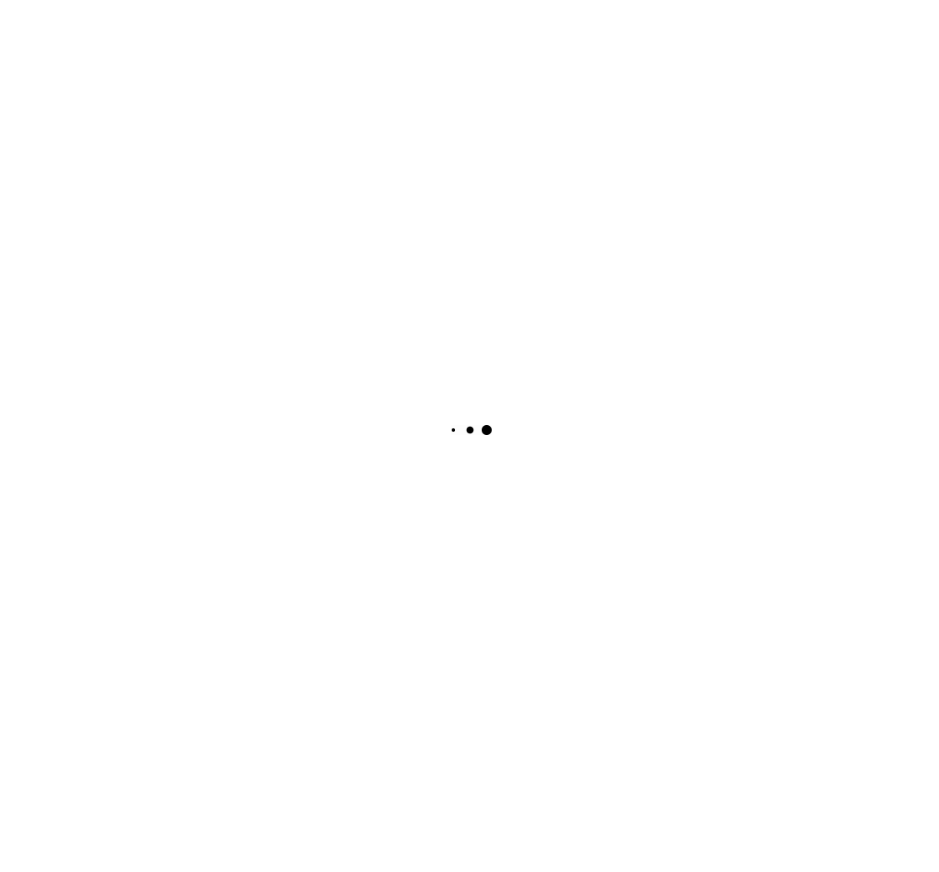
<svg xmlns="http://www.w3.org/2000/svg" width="939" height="872">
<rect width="100%" height="100%" fill="#fff"/>
<image href="1.png" x="451" y="425" width="41" height="10"/>
</svg>
